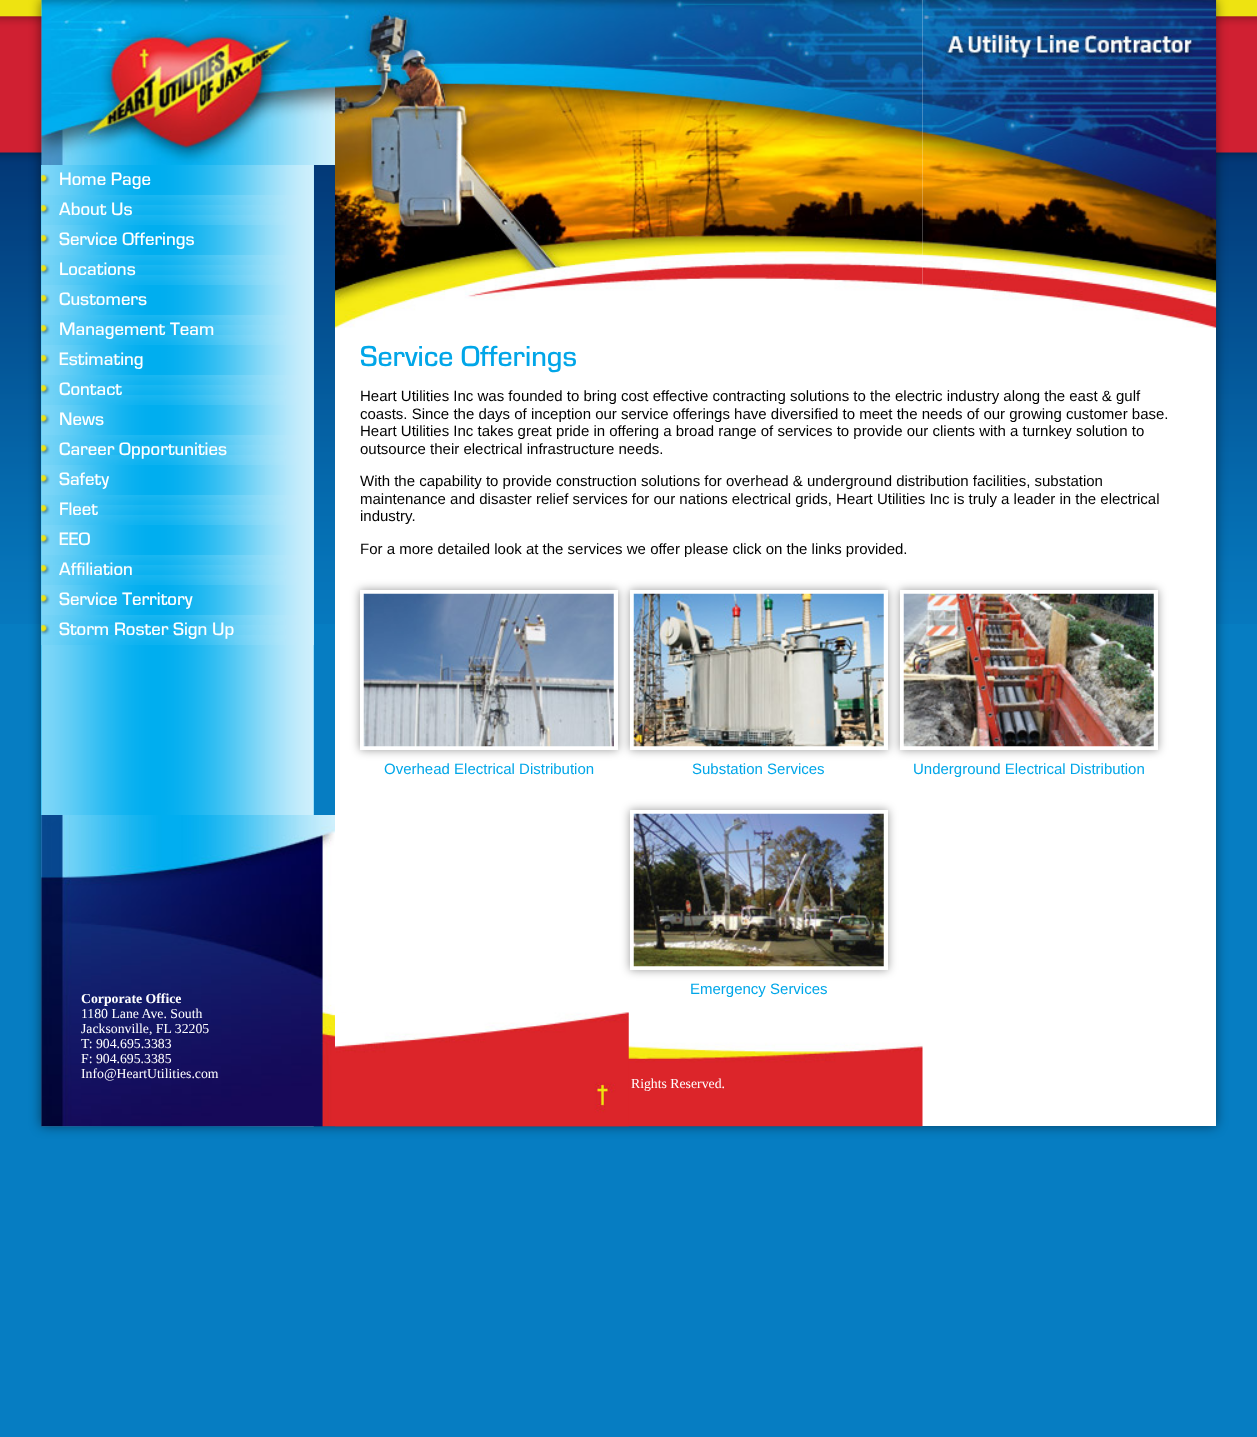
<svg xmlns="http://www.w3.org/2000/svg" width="1257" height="1437">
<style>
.a{font:18.75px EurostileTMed;fill:#fff}
.b{font:bold 13.75px Liberation Serif;fill:#fff}
.c{font:13.75px Liberation Serif;fill:#fff}
.d{font:30px EurostileTMed;fill:#01a6e8}
.e{font:15px Liberation Sans;fill:#000}
.f{font:15px Liberation Sans;fill:#01a6e8}
</style>
<defs>
<clipPath id="clip1"><path d="M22 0h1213v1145h-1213zm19 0h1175v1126h-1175z" clip-rule="evenodd"/></clipPath>
</defs>
<rect width="100%" height="100%" fill="#067dc2"/>
<image href="1.png" x="0" y="0" width="1257" height="624"/>
<g clip-path="url(#clip1)">
<path fill="#00000080" filter="blur(6px)" d="M41 0h1175v1126H41z"/>
</g>
<image href="2.png" x="41" y="0" width="294" height="165"/>
<path fill="#0ab1f0" d="M41 165h273v961H41z"/>
<image href="3.png" x="41" y="165" width="273" height="962"/>
<image href="4.png" x="41" y="165" width="273" height="30"/>
<image href="5.png" x="41" y="174" width="9" height="11"/>
<image href="6.png" x="41" y="195" width="273" height="30"/>
<image href="7.png" x="41" y="204" width="9" height="11"/>
<image href="8.png" x="41" y="225" width="273" height="30"/>
<image href="5.png" x="41" y="234" width="9" height="11"/>
<image href="9.png" x="41" y="255" width="273" height="30"/>
<image href="10.png" x="41" y="264" width="9" height="11"/>
<image href="11.png" x="41" y="285" width="273" height="30"/>
<image href="12.png" x="41" y="294" width="9" height="11"/>
<image href="13.png" x="41" y="315" width="273" height="30"/>
<image href="10.png" x="41" y="324" width="9" height="11"/>
<image href="14.png" x="41" y="345" width="273" height="30"/>
<image href="5.png" x="41" y="354" width="9" height="11"/>
<image href="15.png" x="41" y="375" width="273" height="30"/>
<image href="16.png" x="41" y="384" width="9" height="11"/>
<image href="17.png" x="41" y="405" width="273" height="30"/>
<image href="5.png" x="41" y="414" width="9" height="11"/>
<image href="18.png" x="41" y="435" width="273" height="30"/>
<image href="10.png" x="41" y="444" width="9" height="11"/>
<image href="19.png" x="41" y="465" width="273" height="30"/>
<image href="5.png" x="41" y="474" width="9" height="11"/>
<image href="20.png" x="41" y="495" width="273" height="30"/>
<image href="10.png" x="41" y="504" width="9" height="11"/>
<image href="21.png" x="41" y="525" width="273" height="30"/>
<image href="5.png" x="41" y="534" width="9" height="11"/>
<image href="22.png" x="41" y="555" width="273" height="30"/>
<image href="16.png" x="41" y="564" width="9" height="11"/>
<image href="23.png" x="41" y="585" width="273" height="30"/>
<image href="12.png" x="41" y="594" width="9" height="11"/>
<image href="24.png" x="41" y="615" width="273" height="30"/>
<image href="7.png" x="41" y="624" width="9" height="11"/>
<image href="25.png" x="41" y="815" width="294" height="312"/>
<path fill="#fff" d="M335 0h881v1126H335z"/>
<image href="26.png" x="335" y="0" width="588" height="328"/>
<image href="27.png" x="922" y="0" width="295" height="328"/>
<path fill="#00000066" filter="blur(5px)" d="M360 590h258v160H360z"/>
<path fill="#fff" d="M360 590h258v160H360z"/>
<image href="28.png" x="363" y="593" width="251" height="154"/>
<path fill="#00000066" filter="blur(5px)" d="M630 590h258v160H630z"/>
<path fill="#fff" d="M630 590h258v160H630z"/>
<image href="29.png" x="633" y="593" width="251" height="154"/>
<path fill="#00000066" filter="blur(5px)" d="M900 590h258v160H900z"/>
<path fill="#fff" d="M900 590h258v160H900z"/>
<image href="30.png" x="903" y="593" width="251" height="154"/>
<path fill="#00000066" filter="blur(5px)" d="M630 810h258v160H630z"/>
<path fill="#fff" d="M630 810h258v160H630z"/>
<image href="31.png" x="633" y="813" width="251" height="154"/>
<image href="33.png" x="335" y="1012" width="588" height="115"/>
<image href="32.png" x="335" y="1012" width="294" height="115"/>
<text class="a" x="59" y="185">Home Page</text>
<text class="a" x="59" y="215">About Us</text>
<text class="a" x="59" y="245">Service Offerings</text>
<text class="a" x="59" y="275">Locations</text>
<text class="a" x="59" y="305">Customers</text>
<text class="a" x="59" y="335">Management Team</text>
<text class="a" x="59" y="365">Estimating</text>
<text class="a" x="59" y="395">Contact</text>
<text class="a" x="59" y="425">News</text>
<text class="a" x="59" y="455">Career Opportunities</text>
<text class="a" x="59" y="485">Safety</text>
<text class="a" x="59" y="515">Fleet</text>
<text class="a" x="59" y="545">EEO</text>
<text class="a" x="59" y="575">Affiliation</text>
<text class="a" x="59" y="605">Service Territory</text>
<text class="a" x="59" y="635">Storm Roster Sign Up</text>
<text class="b" x="81" y="1003">Corporate Office</text>
<text class="c" x="81" y="1018">1180 Lane Ave. South</text>
<text class="c" x="81" y="1033">Jacksonville, FL 32205</text>
<text class="c" x="81" y="1048">T: 904.695.3383</text>
<text class="c" x="81" y="1063">F: 904.695.3385</text>
<text class="c" x="81" y="1078">Info@HeartUtilities.com</text>
<text class="d" x="360" y="366">Service Offerings</text>
<text class="e" x="360" y="401">Heart Utilities Inc was founded to bring cost effective contracting solutions to the electric industry along the east &amp; gulf</text>
<text class="e" x="360" y="419">coasts. Since the days of inception our service offerings have diversified to meet the needs of our growing customer base.</text>
<text class="e" x="360" y="436">Heart Utilities Inc takes great pride in offering a broad range of services to provide our clients with a turnkey solution to</text>
<text class="e" x="360" y="454">outsource their electrical infrastructure needs.</text>
<text class="e" x="360" y="486">With the capability to provide construction solutions for overhead &amp; underground distribution facilities, substation</text>
<text class="e" x="360" y="504">maintenance and disaster relief services for our nations electrical grids, Heart Utilities Inc is truly a leader in the electrical</text>
<text class="e" x="360" y="521">industry.</text>
<text class="e" x="360" y="554">For a more detailed look at the services we offer please click on the links provided.</text>
<text class="f" x="384" y="774">Overhead Electrical Distribution</text>
<text class="f" x="692" y="774">Substation Services</text>
<text class="f" x="913" y="774">Underground Electrical Distribution</text>
<text class="f" x="690" y="994">Emergency Services</text>
<text class="c" x="631" y="1088">Rights Reserved.</text>
</svg>
